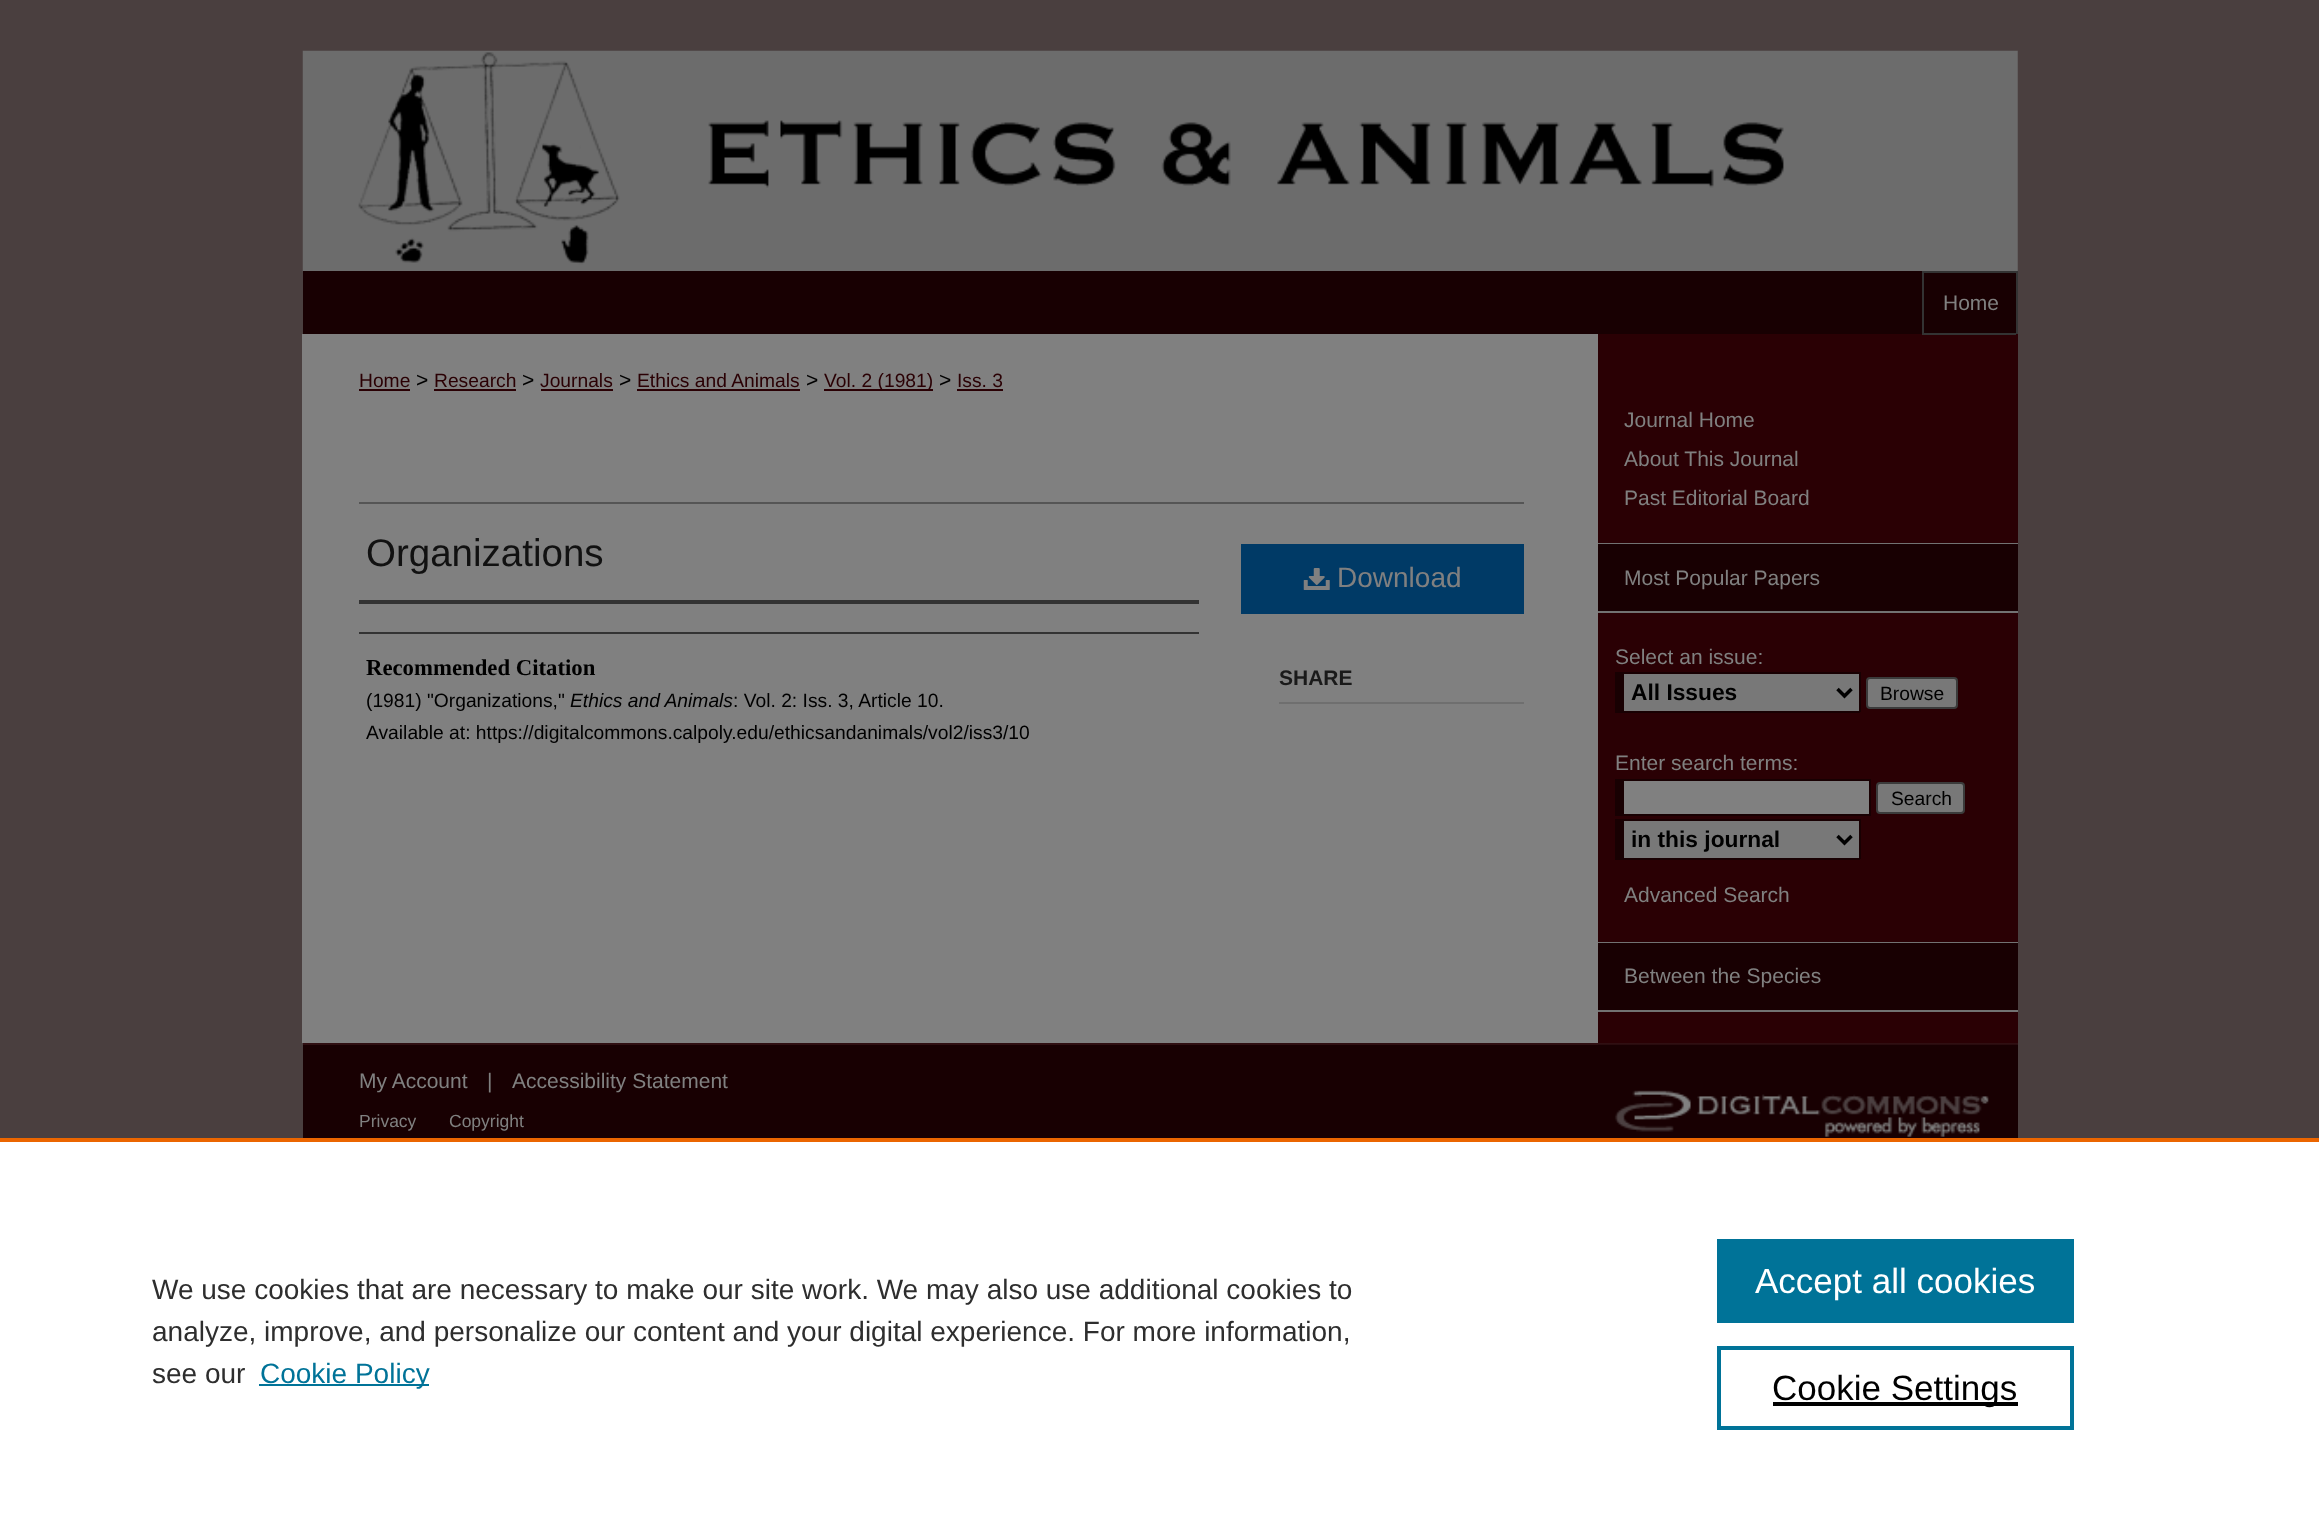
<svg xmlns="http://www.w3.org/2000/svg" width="2319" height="1521">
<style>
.a{font:21px Liberation Sans;fill:#808080}
.b{font:19.25px Liberation Sans;fill:#2a0004}
.c{font:21px Liberation Sans;fill:#000}
.d{font:38.5px Liberation Sans;fill:#111}
.e{font:bold 22.75px Liberation Serif;fill:#000}
.f{font:19.25px Liberation Sans;fill:#000}
.g{font:italic 19.25px Liberation Sans;fill:#000}
.h{font:28px Liberation Sans;fill:#808080}
.i{font:bold 21px Liberation Sans;fill:#1a1a1a}
.j{font:bold 22.75px Liberation Sans;fill:#000}
.k{font:17.5px Liberation Sans;fill:#808080}
.l{font:28px Liberation Sans;fill:#2e2e2e}
.m{font:28px Liberation Sans;fill:#007398}
.n{font:35px Liberation Sans;fill:#fff}
.o{font:35px Liberation Sans;fill:#000}
</style>
<rect width="100%" height="100%" fill="#4a3f3f"/>
<image href="1.png" x="302" y="50" width="1716" height="222"/>
<path fill="#180002" d="M303 271h1713v63H303z"/>
<path fill="#333" d="M2016 271h2v63H2016z"/>
<path fill="#333" d="M1922 271h94v2H1922z"/>
<path fill="#2a0004" d="M1598 334h420v709H1598z"/>
<path fill="#333" d="M1922 333h94v2H1922z"/>
<path fill="#333" d="M1922 271h2v63H1922z"/>
<path fill="#808080" d="M302 334h1296v709H302z"/>
<path fill="#2a0004" d="M359 389h51v2H359z"/>
<path fill="#2a0004" d="M434 389h82v2H434z"/>
<path fill="#2a0004" d="M541 389h72v2H541z"/>
<path fill="#2a0004" d="M637 389h163v2H637z"/>
<path fill="#2a0004" d="M824 389h109v2H824z"/>
<path fill="#2a0004" d="M957 389h46v2H957z"/>
<path fill="#555" d="M359 502h1165v2H359z"/>
<path fill="#333" d="M359 600h840v4H359z"/>
<path fill="#333" d="M359 632h840v2H359z"/>
<path fill="#003a66" d="M1241 544h283v70H1241z"/>
<image href="2.png" x="1303" y="568" width="27" height="22"/>
<path fill="#6f6f6f" d="M1279 702h245v2H1279z"/>
<path fill="#727272" d="M1598 543h420v1H1598z"/>
<path fill="#180002" d="M1598 544h420v67H1598z"/>
<path fill="#727272" d="M1598 611h420v2H1598z"/>
<path fill="#787878" d="M1624 674h235v37H1624z"/>
<path fill="#180002" d="M1624 672h236v2H1624z"/>
<path fill="#180002" d="M1859 672h2v40H1859z"/>
<path fill="#180002" d="M1615 711h245v2H1615z"/>
<path fill="#180002" d="M1615 672h9v39H1615z"/>
<path fill="none" stroke="#000" stroke-width="3.5" d="M1837.5 689l7 7l7-7"/>
<rect fill="#787878" stroke="#3b3b3b" stroke-width="2" x="1867" y="678" width="90" height="30" rx="3"/>
<path fill="#808080" d="M1624 781h245v33H1624z"/>
<path fill="#180002" d="M1624 779h247v2H1624z"/>
<path fill="#180002" d="M1869 779h2v37H1869z"/>
<path fill="#180002" d="M1624 814h247v2H1624z"/>
<path fill="#180002" d="M1615 779h9v37H1615z"/>
<rect fill="#787878" stroke="#3b3b3b" stroke-width="2" x="1877" y="783" width="87" height="30" rx="3"/>
<path fill="#787878" d="M1624 821h235v37H1624z"/>
<path fill="#180002" d="M1624 819h236v2H1624z"/>
<path fill="#180002" d="M1859 819h2v40H1859z"/>
<path fill="#180002" d="M1615 858h245v2H1615z"/>
<path fill="#180002" d="M1615 819h9v39H1615z"/>
<path fill="none" stroke="#000" stroke-width="3.5" d="M1837.5 836l7 7l7-7"/>
<path fill="#727272" d="M1598 942h420v1H1598z"/>
<path fill="#727272" d="M1598 1010h420v2H1598z"/>
<path fill="#180002" d="M1598 943h420v67H1598z"/>
<path fill="#180002" d="M303 1045h1715v93H303z"/>
<path fill="#2f0f12" d="M303 1043h1715v2H303z"/>
<image href="3.png" x="1598" y="1044" width="420" height="94"/>
<path fill="#fff" d="M0 1142h2319v379H0z"/>
<path fill="#eb6500" d="M0 1138h2319v4H0z"/>
<path fill="#007398" d="M259 1384h170v2H259z"/>
<path fill="#007398" d="M1717 1239h357v84H1717z"/>
<path fill="none" stroke="#007398" stroke-width="4" d="M1719 1348h353v80H1719z"/>
<path fill="#000" d="M1773 1402h245v4H1773z"/>
<text class="a" x="1943" y="310">Home</text>
<text class="b" x="359" y="387">Home</text>
<text class="c" x="416" y="387">&gt;</text>
<text class="b" x="434" y="387">Research</text>
<text class="c" x="522" y="387">&gt;</text>
<text class="b" x="540" y="387">Journals</text>
<text class="c" x="619" y="387">&gt;</text>
<text class="b" x="637" y="387">Ethics and Animals</text>
<text class="c" x="806" y="387">&gt;</text>
<text class="b" x="824" y="387">Vol. 2 (1981)</text>
<text class="c" x="939" y="387">&gt;</text>
<text class="b" x="957" y="387">Iss. 3</text>
<text class="d" x="366" y="566">Organizations</text>
<text class="e" x="366" y="675">Recommended Citation</text>
<text class="f" x="366" y="707">(1981) "Organizations,"</text>
<text class="g" x="570" y="707">Ethics and Animals</text>
<text class="f" x="733" y="707">: Vol. 2: Iss. 3, Article 10.</text>
<text class="f" x="366" y="739">Available at: https://digitalcommons.calpoly.edu/ethicsandanimals/vol2/iss3/10</text>
<text class="h" x="1337" y="587">Download</text>
<text class="i" x="1279" y="685">SHARE</text>
<text class="a" x="1624" y="427">Journal Home</text>
<text class="a" x="1624" y="466">About This Journal</text>
<text class="a" x="1624" y="505">Past Editorial Board</text>
<text class="a" x="1624" y="585">Most Popular Papers</text>
<text class="a" x="1615" y="664">Select an issue:</text>
<text class="j" x="1631" y="700">All Issues</text>
<text class="f" x="1880" y="700">Browse</text>
<text class="a" x="1615" y="770">Enter search terms:</text>
<text class="f" x="1891" y="805">Search</text>
<text class="j" x="1631" y="847">in this journal</text>
<text class="a" x="1624" y="902">Advanced Search</text>
<text class="a" x="1624" y="983">Between the Species</text>
<text class="a" x="359" y="1088">My Account</text>
<text class="a" x="487" y="1088">|</text>
<text class="a" x="512" y="1088">Accessibility Statement</text>
<text class="k" x="359" y="1127">Privacy</text>
<text class="k" x="449" y="1127">Copyright</text>
<text class="l" x="152" y="1299">We use cookies that are necessary to make our site work. We may also use additional cookies to</text>
<text class="l" x="152" y="1341">analyze, improve, and personalize our content and your digital experience. For more information,</text>
<text class="l" x="152" y="1383">see our</text>
<text class="m" x="260" y="1383">Cookie Policy</text>
<text class="n" x="1755" y="1293">Accept all cookies</text>
<text class="o" x="1772" y="1400">Cookie Settings</text>
</svg>
